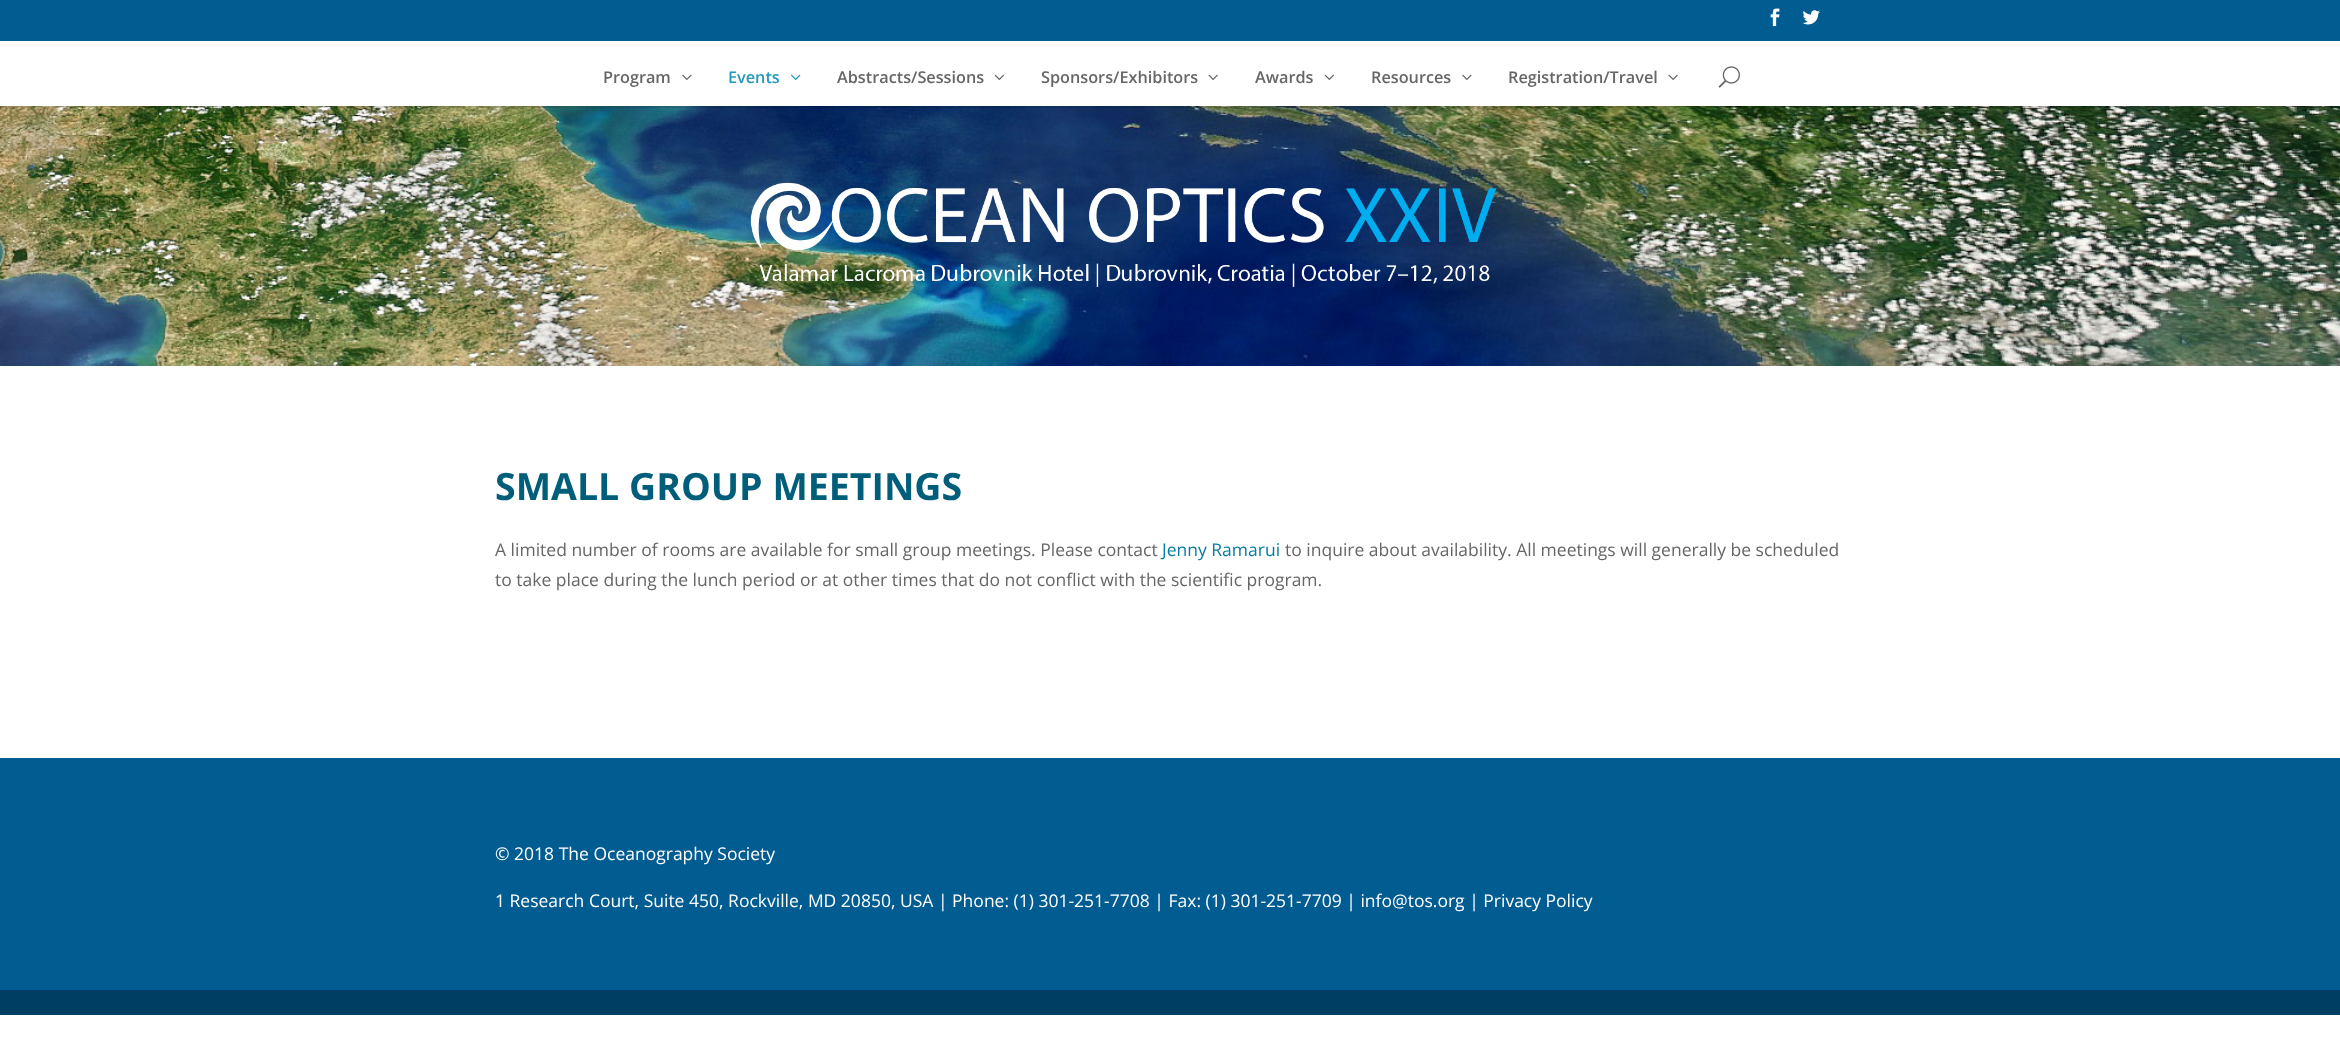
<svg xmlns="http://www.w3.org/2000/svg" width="2340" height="1064">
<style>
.a{font:600 16.25px Open Sans;fill:#666}
.b{font:600 16.25px Open Sans;fill:#2399bc}
.c{font:bold 37.5px Open Sans;fill:#005e7a}
.d{font:17.5px Open Sans;fill:#666}
.e{font:17.5px Open Sans;fill:#067ca0}
.f{font:17.5px Open Sans;fill:#fff}
</style>
<rect width="100%" height="100%" fill="#fff"/>
<path fill="#005c91" d="M0 0h2340v41H0z"/>
<image href="1.png" x="1770" y="8" width="10" height="19"/>
<image href="2.png" x="1802" y="10" width="18" height="15"/>
<image href="8.png" x="0" y="106" width="2340" height="260"/>
<path fill="#0000001a" d="M0 106h2340v2H0z"/>
<image href="3.png" x="682" y="74" width="10" height="6"/>
<image href="4.png" x="791" y="74" width="10" height="6"/>
<image href="5.png" x="994" y="74" width="10" height="6"/>
<image href="6.png" x="1208" y="74" width="10" height="6"/>
<image href="5.png" x="1324" y="74" width="10" height="6"/>
<image href="3.png" x="1462" y="74" width="10" height="6"/>
<image href="6.png" x="1668" y="74" width="10" height="6"/>
<image href="7.png" x="1718" y="66" width="22" height="22"/>
<image href="9.png" x="750" y="182" width="747" height="105"/>
<path fill="#005c91" d="M0 758h2340v232H0z"/>
<path fill="#003f63" d="M0 990h2340v25H0z"/>
<text class="a" x="603" y="83">Program</text>
<text class="b" x="728" y="83">Events</text>
<text class="a" x="837" y="83">Abstracts/Sessions</text>
<text class="a" x="1041" y="83">Sponsors/Exhibitors</text>
<text class="a" x="1255" y="83">Awards</text>
<text class="a" x="1371" y="83">Resources</text>
<text class="a" x="1508" y="83">Registration/Travel</text>
<text class="c" x="495" y="500">SMALL GROUP MEETINGS</text>
<text class="d" x="495" y="556">A limited number of rooms are available for small group meetings. Please contact</text>
<text class="e" x="1162" y="556">Jenny Ramarui</text>
<text class="d" x="1285" y="556">to inquire about availability. All meetings will generally be scheduled</text>
<text class="d" x="495" y="586">to take place during the lunch period or at other times that do not conflict with the scientific program.</text>
<text class="f" x="495" y="860">© 2018 The Oceanography Society</text>
<text class="f" x="495" y="907">1 Research Court, Suite 450, Rockville, MD 20850, USA | Phone: (1) 301-251-7708 | Fax: (1) 301-251-7709 | info@tos.org | Privacy Policy</text>
</svg>
